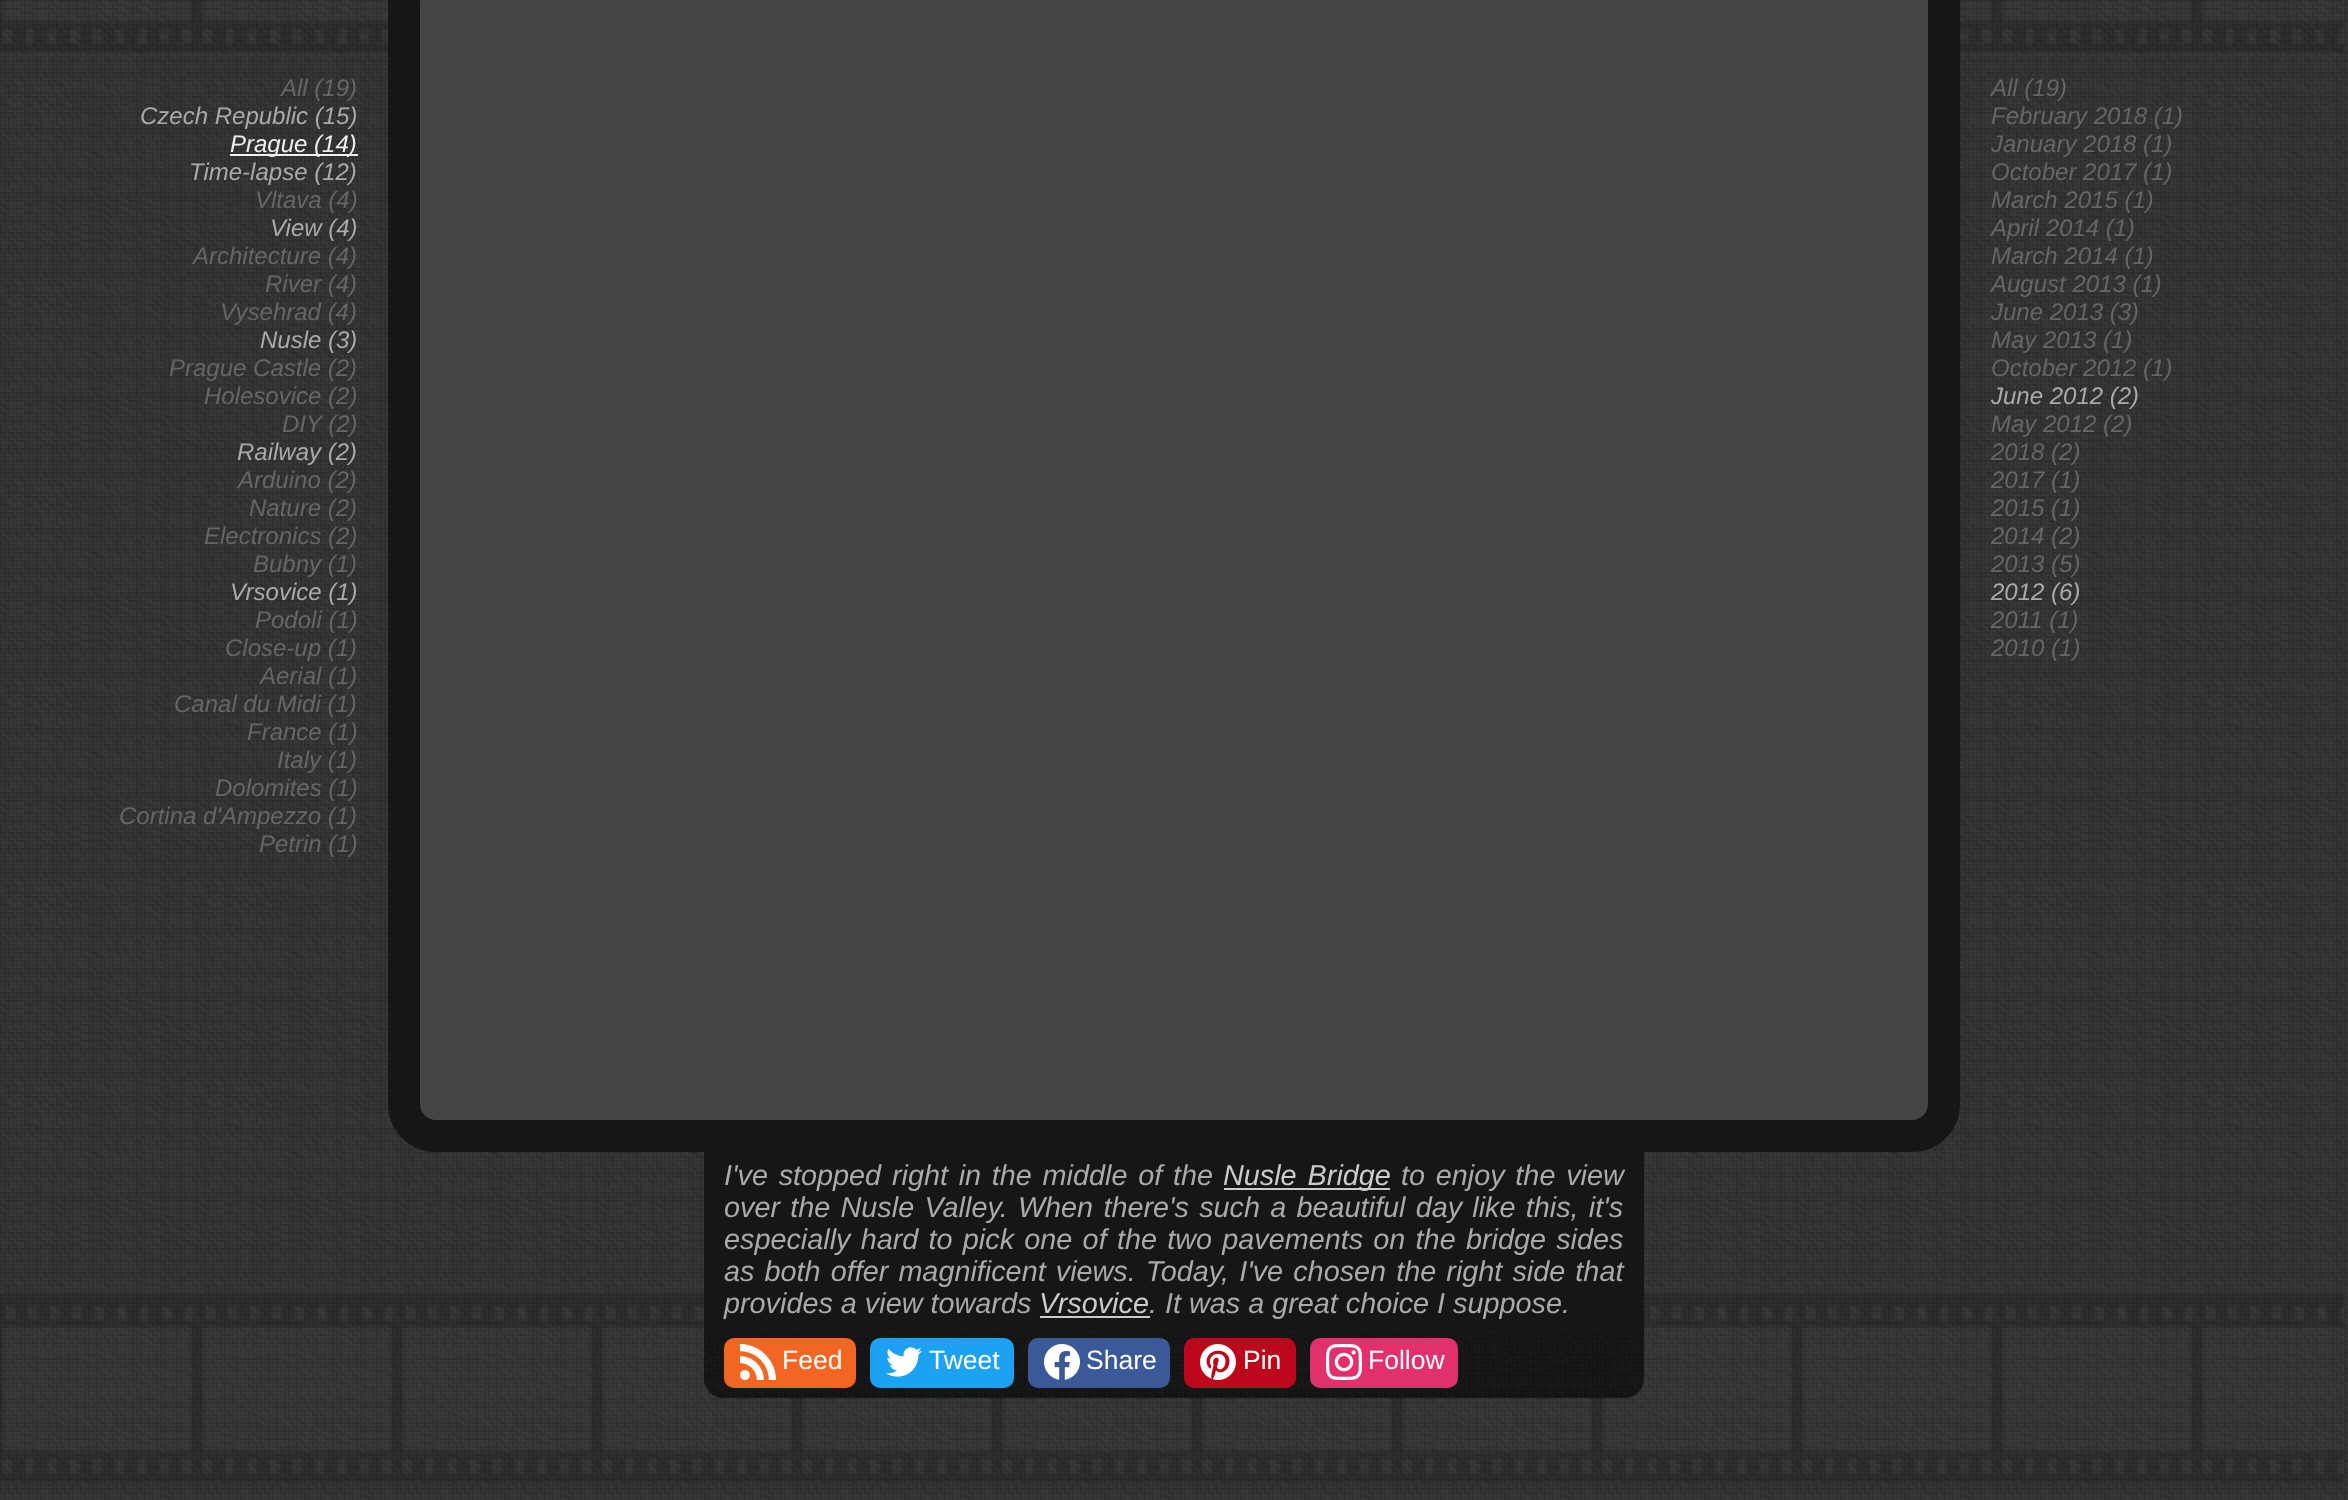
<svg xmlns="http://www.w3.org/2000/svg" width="2348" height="1500">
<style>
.a{font:italic 24px Liberation Sans;fill:#666}
.b{font:italic 24px Liberation Sans;fill:#aaa}
.c{font:italic 24px Liberation Sans;fill:#eee}
.d{font:italic 28.8px Liberation Sans;fill:#aaa}
.e{font:italic 28.8px Liberation Sans;fill:#ccc}
.f{font:26.5px Liberation Sans;fill:#fff}
</style>
<rect width="100%" height="100%" fill="#fff"/>
<image href="1.png" x="0" y="1484" width="2348" height="16"/>
<image href="2.png" x="0" y="0" width="2348" height="1484"/>
<image href="3.png" x="0" y="0" width="2344" height="56"/>
<path fill="#eee" d="M230 154h128v2H230z"/>
<rect fill="#454545" stroke="#161616" stroke-width="32" x="404" y="-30" width="1540" height="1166" rx="32"/>
<image href="5.png" x="0" y="1294" width="2344" height="190"/>
<path fill="#161616" d="M704 1152h940v174H704z"/>
<image href="4.png" x="895" y="1158" width="601" height="1"/>
<path fill="#ccc" d="M1224 1188h166v2H1224z"/>
<path fill="#ccc" d="M1040 1316h110v2H1040z"/>
<path fill="#161616" d="M704 1326h940v52c0 11-9 20-20 20h-900c-11 0-20-9-20-20z"/>
<image href="6.png" x="704" y="1332" width="940" height="66"/>
<rect fill="#f26522" x="724" y="1338" width="132" height="50" rx="10"/>
<image href="7.png" x="740" y="1344" width="36" height="36"/>
<rect fill="#1da1f2" x="870" y="1338" width="144" height="50" rx="10"/>
<image href="8.png" x="886" y="1347" width="36" height="30"/>
<rect fill="#3b5998" x="1028" y="1338" width="142" height="50" rx="10"/>
<image href="9.png" x="1044" y="1344" width="36" height="36"/>
<rect fill="#bd081c" x="1184" y="1338" width="112" height="50" rx="10"/>
<image href="10.png" x="1200" y="1344" width="36" height="36"/>
<rect fill="#e1306c" x="1310" y="1338" width="148" height="50" rx="10"/>
<image href="11.png" x="1326" y="1344" width="36" height="36"/>
<text class="a" x="281" y="96">All (19)</text>
<text class="b" x="140" y="124">Czech Republic (15)</text>
<text class="c" x="230" y="152">Prague (14)</text>
<text class="b" x="189" y="180">Time-lapse (12)</text>
<text class="a" x="255" y="208">Vltava (4)</text>
<text class="b" x="270" y="236">View (4)</text>
<text class="a" x="193" y="264">Architecture (4)</text>
<text class="a" x="265" y="292">River (4)</text>
<text class="a" x="220" y="320">Vysehrad (4)</text>
<text class="b" x="260" y="348">Nusle (3)</text>
<text class="a" x="169" y="376">Prague Castle (2)</text>
<text class="a" x="204" y="404">Holesovice (2)</text>
<text class="a" x="282" y="432">DIY (2)</text>
<text class="b" x="237" y="460">Railway (2)</text>
<text class="a" x="238" y="488">Arduino (2)</text>
<text class="a" x="249" y="516">Nature (2)</text>
<text class="a" x="204" y="544">Electronics (2)</text>
<text class="a" x="253" y="572">Bubny (1)</text>
<text class="b" x="230" y="600">Vrsovice (1)</text>
<text class="a" x="255" y="628">Podoli (1)</text>
<text class="a" x="225" y="656">Close-up (1)</text>
<text class="a" x="260" y="684">Aerial (1)</text>
<text class="a" x="174" y="712">Canal du Midi (1)</text>
<text class="a" x="247" y="740">France (1)</text>
<text class="a" x="277" y="768">Italy (1)</text>
<text class="a" x="215" y="796">Dolomites (1)</text>
<text class="a" x="119" y="824">Cortina d'Ampezzo (1)</text>
<text class="a" x="259" y="852">Petrin (1)</text>
<text class="a" x="1991" y="96">All (19)</text>
<text class="a" x="1991" y="124">February 2018 (1)</text>
<text class="a" x="1991" y="152">January 2018 (1)</text>
<text class="a" x="1991" y="180">October 2017 (1)</text>
<text class="a" x="1991" y="208">March 2015 (1)</text>
<text class="a" x="1991" y="236">April 2014 (1)</text>
<text class="a" x="1991" y="264">March 2014 (1)</text>
<text class="a" x="1991" y="292">August 2013 (1)</text>
<text class="a" x="1991" y="320">June 2013 (3)</text>
<text class="a" x="1991" y="348">May 2013 (1)</text>
<text class="a" x="1991" y="376">October 2012 (1)</text>
<text class="b" x="1991" y="404">June 2012 (2)</text>
<text class="a" x="1991" y="432">May 2012 (2)</text>
<text class="a" x="1991" y="460">2018 (2)</text>
<text class="a" x="1991" y="488">2017 (1)</text>
<text class="a" x="1991" y="516">2015 (1)</text>
<text class="a" x="1991" y="544">2014 (2)</text>
<text class="a" x="1991" y="572">2013 (5)</text>
<text class="b" x="1991" y="600">2012 (6)</text>
<text class="a" x="1991" y="628">2011 (1)</text>
<text class="a" x="1991" y="656">2010 (1)</text>
<text class="d" x="724" y="1185" word-spacing="2.75">I've stopped right in the middle of the</text>
<text class="e" x="1223" y="1185" word-spacing="3">Nusle Bridge</text>
<text class="d" x="1401" y="1185" word-spacing="2.75">to enjoy the view</text>
<text class="d" x="724" y="1217" word-spacing="2.25">over the Nusle Valley. When there's such a beautiful day like this, it's</text>
<text class="d" x="724" y="1249" word-spacing="2.25">especially hard to pick one of the two pavements on the bridge sides</text>
<text class="d" x="724" y="1281" word-spacing="2.1">as both offer magnificent views. Today, I've chosen the right side that</text>
<text class="d" x="724" y="1313">provides a view towards</text>
<text class="e" x="1039" y="1313">Vrsovice</text>
<text class="d" x="1149" y="1313">. It was a great choice I suppose.</text>
<text class="f" x="782" y="1369">Feed</text>
<text class="f" x="929" y="1369">Tweet</text>
<text class="f" x="1086" y="1369">Share</text>
<text class="f" x="1243" y="1369">Pin</text>
<text class="f" x="1368" y="1369">Follow</text>
</svg>
